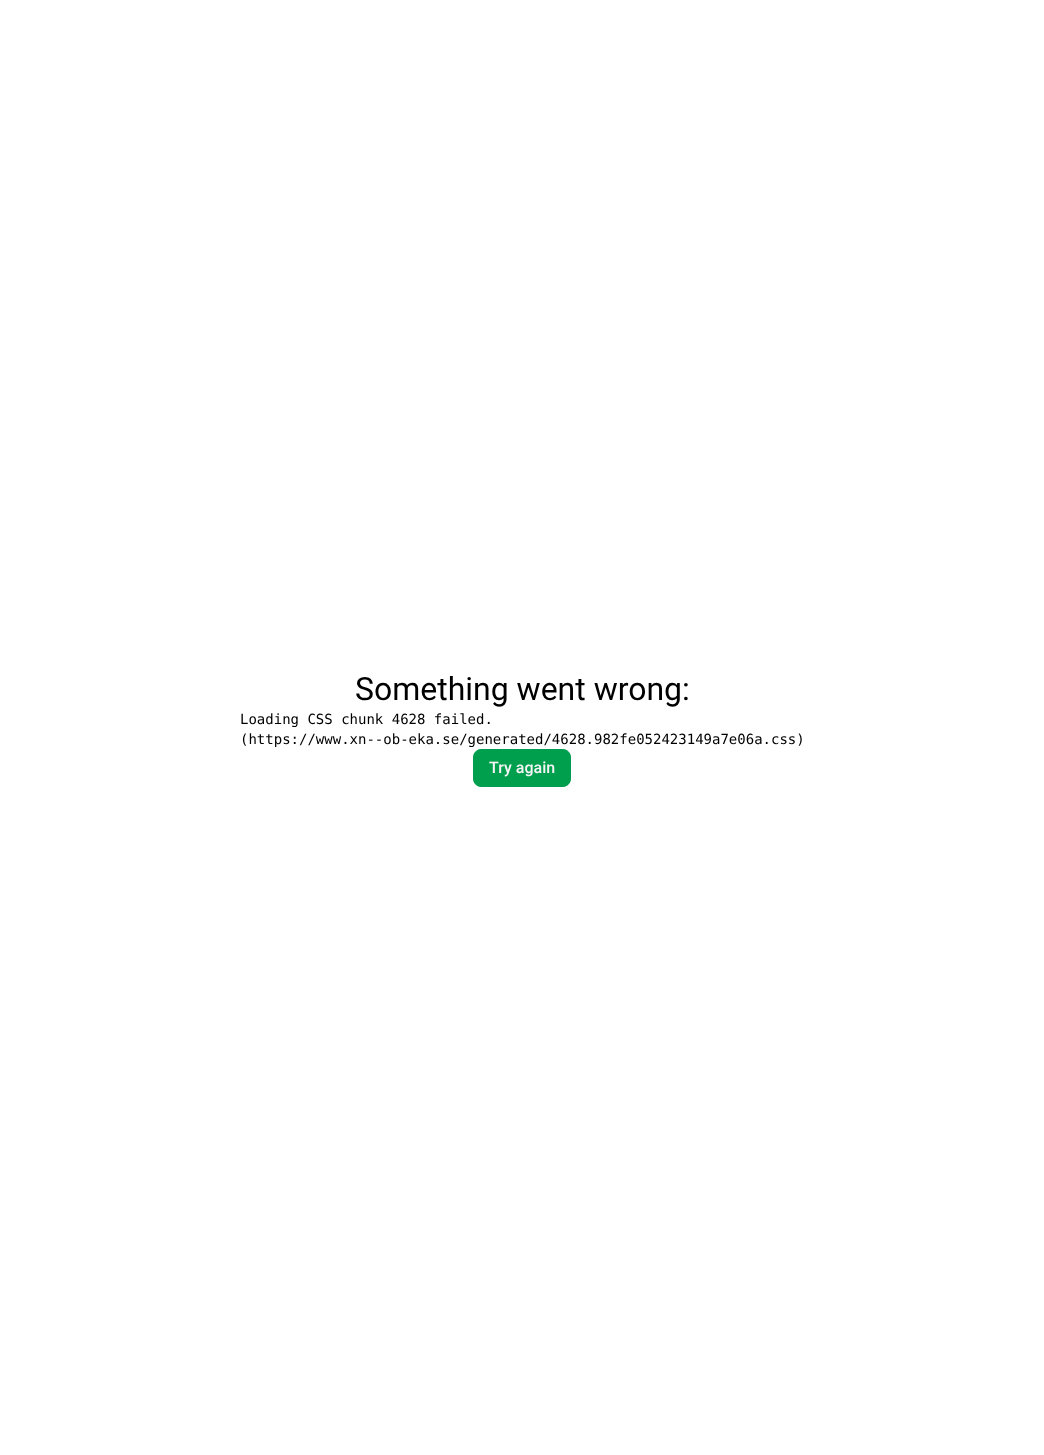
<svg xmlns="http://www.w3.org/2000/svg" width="1044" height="1455">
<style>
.a{font:32px Roboto;fill:#000}
.b{font:14px DejaVu Sans Mono;fill:#000}
.c{font:500 16px Roboto;fill:#f5f5f5}
</style>
<rect width="100%" height="100%" fill="#fff"/>
<rect fill="#009f4d" stroke="#009f4d" x="473.5" y="749.5" width="97" height="37" rx="7.5"/>
<text class="a" x="355" y="700">Something went wrong:</text>
<text class="b" x="240" y="724">Loading CSS chunk 4628 failed.</text>
<text class="b" x="240" y="744">(https://www.xn--ob-eka.se/generated/4628.982fe052423149a7e06a.css)</text>
<text class="c" x="489" y="773">Try again</text>
</svg>
